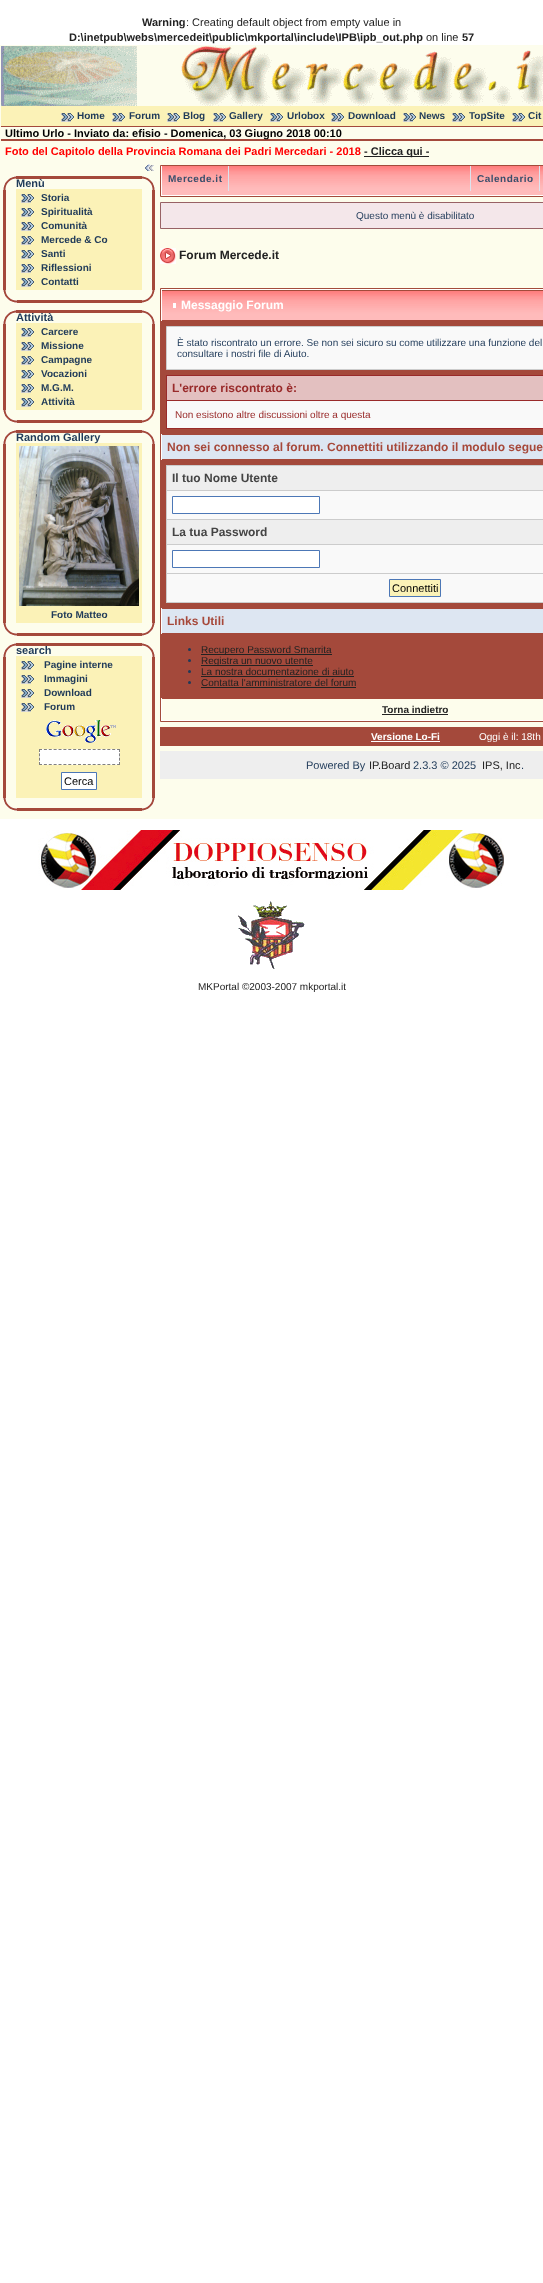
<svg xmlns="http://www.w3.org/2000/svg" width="543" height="2283">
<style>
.a{font:bold 11px Liberation Sans;fill:#222}
.b{font:11px Liberation Sans;fill:#222}
.c{font:bold 10px Liberation Sans;fill:#1f3a59}
.d{font:bold 11px Liberation Sans;fill:#000}
.e{font:bold 11px Liberation Sans;fill:#f00}
.f{font:bold 11px Liberation Sans;fill:#1f3a59}
.g{font:11px Liberation Sans;fill:#000}
.h{font:bold 10px Liberation Sans;letter-spacing:0.5px;fill:#3a4f6c}
.i{font:10px Liberation Sans;fill:#1f3a59}
.j{font:bold 12px Liberation Sans;fill:#222}
.k{font:bold 12px Liberation Sans;fill:#fff}
.l{font:bold 12px Liberation Sans;fill:#992a2a}
.m{font:10px Liberation Sans;fill:#992a2a}
.n{font:bold 12px Liberation Sans;fill:#a6483a}
.o{font:bold 12px Liberation Sans;fill:#444}
.p{font:10px Liberation Sans;fill:#222}
.q{font:bold 10px Liberation Sans;fill:#222}
.r{font:bold 10px Liberation Sans;fill:#fff}
.s{font:10px Liberation Sans;fill:#fff}
.t{font:11px Liberation Sans;fill:#1f3a59}
</style>
<rect width="100%" height="100%" fill="#fff"/>
<path fill="#fdfdec" d="M0 45h543v774H0z"/>
<image href="1.png" x="1" y="46" width="542" height="60"/>
<path fill="#fbf2b7" d="M1 106h542v20H1z"/>
<image href="2.png" x="61" y="113" width="13" height="9"/>
<image href="2.png" x="112" y="113" width="13" height="9"/>
<image href="2.png" x="167" y="113" width="13" height="9"/>
<image href="2.png" x="213" y="113" width="13" height="9"/>
<image href="2.png" x="270" y="113" width="13" height="9"/>
<image href="2.png" x="331" y="113" width="13" height="9"/>
<image href="2.png" x="403" y="113" width="13" height="9"/>
<image href="2.png" x="452" y="113" width="13" height="9"/>
<image href="2.png" x="512" y="113" width="13" height="9"/>
<image href="3.png" x="1" y="126" width="542" height="15"/>
<path fill="#222" d="M364 156h65v1H364z"/>
<image href="4.png" x="145" y="164" width="9" height="7"/>
<image href="5.png" x="3" y="176" width="13" height="13"/>
<path fill="#a4493b" d="M16 176h126v3H16z"/>
<image href="6.png" x="142" y="176" width="13" height="13"/>
<path fill="#a4493b" d="M3 189h3v101H3z"/>
<image href="7.png" x="3" y="189" width="3" height="1"/>
<path fill="#fbf2b7" d="M16 189h126v101H16z"/>
<image href="2.png" x="21" y="194" width="13" height="9"/>
<image href="2.png" x="21" y="208" width="13" height="9"/>
<image href="2.png" x="21" y="222" width="13" height="9"/>
<image href="2.png" x="21" y="236" width="13" height="9"/>
<image href="2.png" x="21" y="250" width="13" height="9"/>
<image href="2.png" x="21" y="264" width="13" height="9"/>
<image href="2.png" x="21" y="278" width="13" height="9"/>
<path fill="#a4493b" d="M152 189h3v101H152z"/>
<image href="7.png" x="152" y="189" width="3" height="1"/>
<image href="8.png" x="3" y="290" width="13" height="13"/>
<path fill="#a4493b" d="M16 300h126v3H16z"/>
<image href="9.png" x="16" y="300" width="1" height="3"/>
<image href="10.png" x="142" y="290" width="13" height="13"/>
<image href="5.png" x="3" y="310" width="13" height="13"/>
<path fill="#a4493b" d="M16 310h126v3H16z"/>
<image href="6.png" x="142" y="310" width="13" height="13"/>
<path fill="#a4493b" d="M3 323h3v87H3z"/>
<image href="7.png" x="3" y="323" width="3" height="1"/>
<path fill="#fbf2b7" d="M16 323h126v87H16z"/>
<image href="2.png" x="21" y="328" width="13" height="9"/>
<image href="2.png" x="21" y="342" width="13" height="9"/>
<image href="2.png" x="21" y="356" width="13" height="9"/>
<image href="2.png" x="21" y="370" width="13" height="9"/>
<image href="2.png" x="21" y="384" width="13" height="9"/>
<image href="2.png" x="21" y="398" width="13" height="9"/>
<path fill="#a4493b" d="M152 323h3v87H152z"/>
<image href="7.png" x="152" y="323" width="3" height="1"/>
<image href="8.png" x="3" y="410" width="13" height="13"/>
<path fill="#a4493b" d="M16 420h126v3H16z"/>
<image href="9.png" x="16" y="420" width="1" height="3"/>
<image href="10.png" x="142" y="410" width="13" height="13"/>
<image href="5.png" x="3" y="430" width="13" height="13"/>
<path fill="#a4493b" d="M16 430h126v3H16z"/>
<image href="6.png" x="142" y="430" width="13" height="13"/>
<path fill="#a4493b" d="M3 443h3v180H3z"/>
<image href="7.png" x="3" y="443" width="3" height="1"/>
<path fill="#fbf2b7" d="M16 443h126v180H16z"/>
<image href="11.png" x="19" y="446" width="120" height="160"/>
<path fill="#a4493b" d="M152 443h3v180H152z"/>
<image href="7.png" x="152" y="443" width="3" height="1"/>
<image href="8.png" x="3" y="623" width="13" height="13"/>
<path fill="#a4493b" d="M16 633h126v3H16z"/>
<image href="9.png" x="16" y="633" width="1" height="3"/>
<image href="10.png" x="142" y="623" width="13" height="13"/>
<image href="5.png" x="3" y="643" width="13" height="13"/>
<path fill="#a4493b" d="M16 643h126v3H16z"/>
<image href="6.png" x="142" y="643" width="13" height="13"/>
<path fill="#a4493b" d="M3 656h3v142H3z"/>
<image href="7.png" x="3" y="656" width="3" height="1"/>
<path fill="#fbf2b7" d="M16 656h126v142H16z"/>
<image href="2.png" x="21" y="661" width="13" height="9"/>
<image href="2.png" x="21" y="675" width="13" height="9"/>
<image href="2.png" x="21" y="689" width="13" height="9"/>
<image href="2.png" x="21" y="703" width="13" height="9"/>
<image href="12.png" x="46" y="720" width="70" height="23"/>
<path fill="#fff" d="M39 749h81v16H39z"/>
<path fill="none" stroke="#808080" stroke-dasharray="3 1.88" d="M39 749.5h81"/>
<path fill="none" stroke="#808080" stroke-dasharray="3 1.33" d="M119.5 749v16"/>
<path fill="none" stroke="#808080" stroke-dasharray="3 1.88" d="M39 764.5h81"/>
<path fill="none" stroke="#808080" stroke-dasharray="3 1.33" d="M39.5 749v16"/>
<path fill="#fff" stroke="#4c77b6" d="M61.5 772.5h35v17H61.5z"/>
<path fill="#a4493b" d="M152 656h3v142H152z"/>
<image href="7.png" x="152" y="656" width="3" height="1"/>
<image href="8.png" x="3" y="798" width="13" height="13"/>
<path fill="#a4493b" d="M16 808h126v3H16z"/>
<image href="9.png" x="16" y="808" width="1" height="3"/>
<image href="10.png" x="142" y="798" width="13" height="13"/>
<path fill="none" stroke="#a34b3b" d="M160.5 165.5h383v31H160.5z"/>
<image href="13.png" x="162" y="166" width="381" height="29"/>
<path fill="#fff" d="M161 195h382v1H161z"/>
<path fill="#fff" d="M161 166h1v30H161z"/>
<path fill="#dce3ee" d="M228 166h1v25H228z"/>
<path fill="#dce3ee" d="M470 166h1v25H470z"/>
<path fill="#dce3ee" d="M539 166h1v25H539z"/>
<path fill="#f4e7ea" stroke="#986265" d="M160.5 202.5h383v26H160.5z"/>
<image href="14.png" x="160" y="248" width="16" height="16"/>
<path fill="#a4493b" d="M161 321h382v377H161z"/>
<path fill="none" stroke="#a34b3b" d="M160.5 288.5h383v433H160.5z"/>
<image href="15.png" x="162" y="290" width="381" height="30"/>
<path fill="#fff" d="M161 289h382v1H161z"/>
<path fill="#a6483a" d="M161 320h382v1H161z"/>
<path fill="#fff" d="M161 289h1v32H161z"/>
<path fill="#fff" d="M173 303h3v5H173z"/>
<path fill="#f9f9f9" stroke="#ccc" d="M166.5 326.5h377v43H166.5z"/>
<path fill="#992a2a" d="M166 428h377v1H166z"/>
<path fill="#992a2a" d="M166 375h1v54H166z"/>
<path fill="#e3c0c0" d="M167 376h376v24H167z"/>
<path fill="#992a2a" d="M167 375h376v1H167z"/>
<path fill="#992a2a" d="M167 400h376v1H167z"/>
<path fill="#f9f9f9" d="M167 401h376v27H167z"/>
<path fill="#dde6f2" d="M162 435h381v24H162z"/>
<path fill="#fff" d="M161 434h1v26H161z"/>
<path fill="#f9f9f9" d="M167 491h376v111H167z"/>
<path fill="#ccc" d="M166 602h377v1H166z"/>
<path fill="#ccc" d="M166 465h1v138H166z"/>
<path fill="#eee" d="M167 466h376v24H167z"/>
<path fill="#ccc" d="M167 465h376v1H167z"/>
<path fill="#ccc" d="M167 490h376v1H167z"/>
<path fill="#fff" stroke="#4c77b6" d="M172.5 496.5h147v17H172.5z"/>
<path fill="#eee" d="M167 520h376v24H167z"/>
<path fill="#ccc" d="M167 519h376v1H167z"/>
<path fill="#ccc" d="M167 544h376v1H167z"/>
<path fill="#fff" stroke="#4c77b6" d="M172.5 550.5h147v17H172.5z"/>
<path fill="#ccc" d="M167 573h376v1H167z"/>
<path fill="#fbf2b7" stroke="#4c77b6" d="M389.5 579.5h51v17H389.5z"/>
<path fill="#dde6f2" d="M162 609h381v24H162z"/>
<path fill="#fff" d="M161 608h1v26H161z"/>
<circle fill="#1f3a59" cx="189.5" cy="649.5" r="1.5"/>
<path fill="#222" d="M201 654h131v1H201z"/>
<circle fill="#1f3a59" cx="189.5" cy="660.5" r="1.5"/>
<path fill="#222" d="M201 665h112v1H201z"/>
<circle fill="#1f3a59" cx="189.5" cy="671.5" r="1.5"/>
<path fill="#222" d="M201 676h153v1H201z"/>
<circle fill="#1f3a59" cx="189.5" cy="682.5" r="1.5"/>
<path fill="#222" d="M201 687h155v1H201z"/>
<path fill="#a6483a" d="M161 698h382v1H161z"/>
<path fill="#fff" d="M161 720h382v1H161z"/>
<path fill="#fff" d="M161 698h1v23H161z"/>
<path fill="#222" d="M382 714h66v1H382z"/>
<path fill="#a4493b" d="M160 727h383v19H160z"/>
<path fill="#fff" d="M371 741h69v1H371z"/>
<path fill="#eee" d="M160 751h383v28H160z"/>
<image href="16.png" x="38" y="830" width="466" height="60"/>
<image href="17.png" x="238" y="901" width="67" height="68"/>
<text class="a" x="142" y="26">Warning</text>
<text class="b" x="186" y="26">: Creating default object from empty value in</text>
<text class="a" x="69" y="41">D:\inetpub\webs\mercedeit\public\mkportal\include\IPB\ipb_out.php</text>
<text class="b" x="426" y="41">on line</text>
<text class="a" x="462" y="41">57</text>
<text class="c" x="77" y="119">Home</text>
<text class="c" x="129" y="119">Forum</text>
<text class="c" x="183" y="119">Blog</text>
<text class="c" x="229" y="119">Gallery</text>
<text class="c" x="287" y="119">Urlobox</text>
<text class="c" x="348" y="119">Download</text>
<text class="c" x="419" y="119">News</text>
<text class="c" x="469" y="119">TopSite</text>
<text class="c" x="528" y="119">Cit</text>
<text class="d" x="5" y="137">Ultimo Urlo - Inviato da: efisio - Domenica, 03 Giugno 2018 00:10</text>
<text class="e" x="5" y="155">Foto del Capitolo della Provincia Romana dei Padri Mercedari - 2018</text>
<text class="a" x="364" y="155">- Clicca qui -</text>
<text class="f" x="16" y="187">Menù</text>
<text class="c" x="41" y="201">Storia</text>
<text class="c" x="41" y="215">Spiritualità</text>
<text class="c" x="41" y="229">Comunità</text>
<text class="c" x="41" y="243">Mercede &amp; Co</text>
<text class="c" x="41" y="257">Santi</text>
<text class="c" x="41" y="271">Riflessioni</text>
<text class="c" x="41" y="285">Contatti</text>
<text class="f" x="16" y="321">Attività</text>
<text class="c" x="41" y="335">Carcere</text>
<text class="c" x="41" y="349">Missione</text>
<text class="c" x="41" y="363">Campagne</text>
<text class="c" x="41" y="377">Vocazioni</text>
<text class="c" x="41" y="391">M.G.M.</text>
<text class="c" x="41" y="405">Attività</text>
<text class="f" x="16" y="441">Random Gallery</text>
<text class="c" x="51" y="618">Foto Matteo</text>
<text class="f" x="16" y="654">search</text>
<text class="c" x="44" y="668">Pagine interne</text>
<text class="c" x="44" y="682">Immagini</text>
<text class="c" x="44" y="696">Download</text>
<text class="c" x="44" y="710">Forum</text>
<text class="g" x="64" y="785">Cerca</text>
<text class="h" x="168" y="182">Mercede.it</text>
<text class="h" x="477" y="182">Calendario</text>
<text class="i" x="356" y="219">Questo menù è disabilitato</text>
<text class="j" x="179" y="259">Forum Mercede.it</text>
<text class="k" x="181" y="309">Messaggio Forum</text>
<text class="i" x="177" y="346">È stato riscontrato un errore. Se non sei sicuro su come utilizzare una funzione del</text>
<text class="i" x="177" y="357">consultare i nostri file di Aiuto.</text>
<text class="l" x="172" y="392">L'errore riscontrato è:</text>
<text class="m" x="175" y="418">Non esistono altre discussioni oltre a questa</text>
<text class="n" x="167" y="451">Non sei connesso al forum. Connettiti utilizzando il modulo segue</text>
<text class="o" x="172" y="482">Il tuo Nome Utente</text>
<text class="o" x="172" y="536">La tua Password</text>
<text class="g" x="392" y="592">Connettiti</text>
<text class="n" x="167" y="625">Links Utili</text>
<text class="p" x="201" y="653">Recupero Password Smarrita</text>
<text class="p" x="201" y="664">Registra un nuovo utente</text>
<text class="p" x="201" y="675">La nostra documentazione di aiuto</text>
<text class="p" x="201" y="686">Contatta l'amministratore del forum</text>
<text class="q" x="382" y="713">Torna indietro</text>
<text class="r" x="371" y="740">Versione Lo-Fi</text>
<text class="s" x="479" y="740">Oggi è il: 18th</text>
<text class="t" x="306" y="769">Powered By</text>
<text class="b" x="369" y="769">IP.Board</text>
<text class="t" x="413" y="769">2.3.3 © 2025</text>
<text class="b" x="482" y="769">IPS, Inc</text>
<text class="t" x="521" y="769">.</text>
<text class="p" x="198" y="990">MKPortal ©2003-2007 mkportal.it</text>
</svg>
